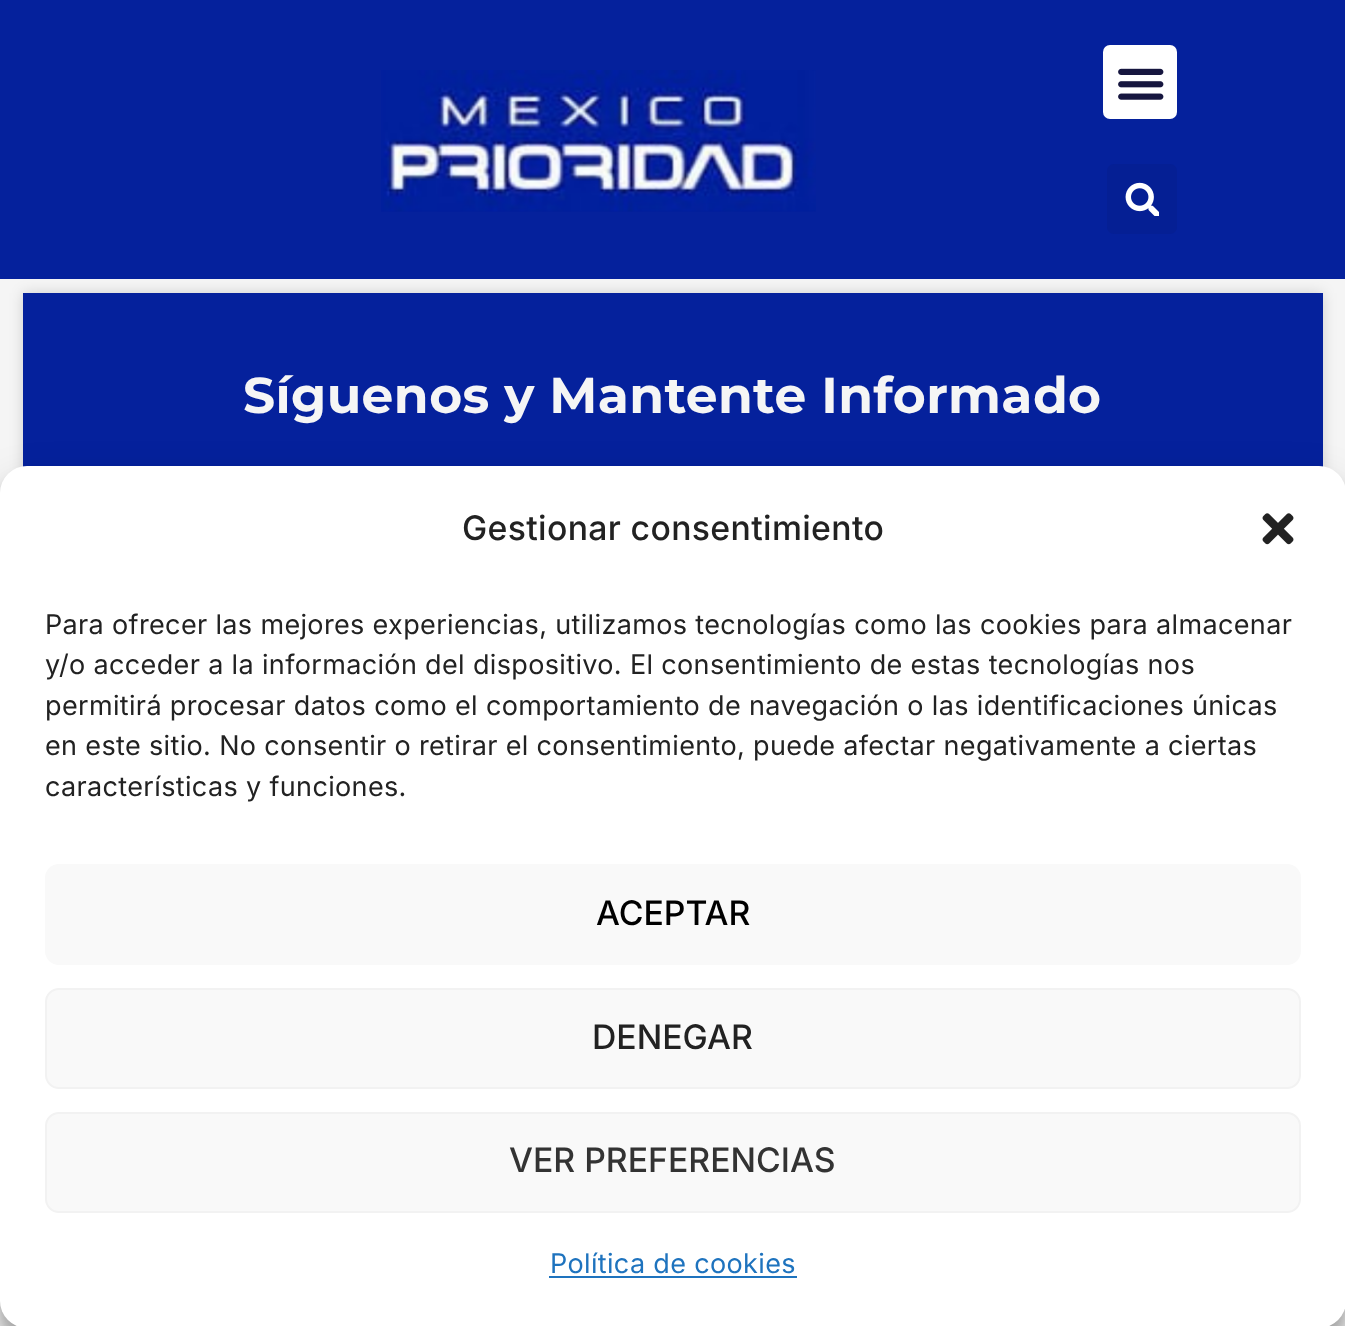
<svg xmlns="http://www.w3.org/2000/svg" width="1345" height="1326">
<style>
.a{font:bold 50.4px Montserrat;letter-spacing:0.35px;fill:#f5f5f5}
.b{font:500 33.75px Inter;letter-spacing:0.35px;fill:#222}
.c{font:27px Inter;letter-spacing:0.35px;fill:#222}
.d{font:500 33.75px Inter;fill:#000}
.e{font:500 33.75px Inter;fill:#222}
.f{font:500 33.75px Inter;fill:#333}
.g{font:27px Inter;letter-spacing:0.35px;fill:#1e73be}
</style>
<rect width="100%" height="100%" fill="#f5f5f5"/>
<path fill="#00000026" filter="blur(7px)" d="M23 293h1300v495H23z"/>
<path fill="#05219c" d="M0 0h1345v279H0z"/>
<image href="1.png" x="381" y="70" width="435" height="142"/>
<rect fill="#fff" x="1103" y="45" width="74" height="74" rx="7"/>
<image href="2.png" x="1118" y="68" width="46" height="32"/>
<rect fill="#051f94" x="1107" y="164" width="70" height="70" rx="7"/>
<image href="3.png" x="1125" y="182" width="34" height="34"/>
<path fill="#05219c" d="M23 293h1300v174H23z"/>
<rect fill="#0000003b" filter="blur(7px)" y="479" width="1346" height="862" rx="27"/>
<rect fill="#00000030" filter="blur(22.5px)" y="488" width="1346" height="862" rx="27"/>
<rect fill="#fff" y="466" width="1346" height="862" rx="27"/>
<image href="4.png" x="1262" y="513" width="32" height="32"/>
<rect fill="#f9f9f9" x="45" y="864" width="1256" height="101" rx="14"/>
<rect fill="#f9f9f9" stroke="#f2f2f2" stroke-width="2" x="46" y="989" width="1254" height="99" rx="13"/>
<rect fill="#f9f9f9" stroke="#f2f2f2" stroke-width="2" x="46" y="1113" width="1254" height="99" rx="13"/>
<path fill="#1e73be" d="M549 1276h248v2H549z"/>
<text class="a" x="243" y="413">Síguenos y Mantente Informado</text>
<text class="b" x="462" y="540">Gestionar consentimiento</text>
<text class="c" x="45" y="634">Para ofrecer las mejores experiencias, utilizamos tecnologías como las cookies para almacenar</text>
<text class="c" x="45" y="674">y/o acceder a la información del dispositivo. El consentimiento de estas tecnologías nos</text>
<text class="c" x="45" y="715">permitirá procesar datos como el comportamiento de navegación o las identificaciones únicas</text>
<text class="c" x="45" y="755">en este sitio. No consentir o retirar el consentimiento, puede afectar negativamente a ciertas</text>
<text class="c" x="45" y="796">características y funciones.</text>
<text class="d" x="596" y="925">ACEPTAR</text>
<text class="e" x="592" y="1049">DENEGAR</text>
<text class="f" x="509" y="1172">VER PREFERENCIAS</text>
<text class="g" x="550" y="1273">Política de cookies</text>
</svg>
